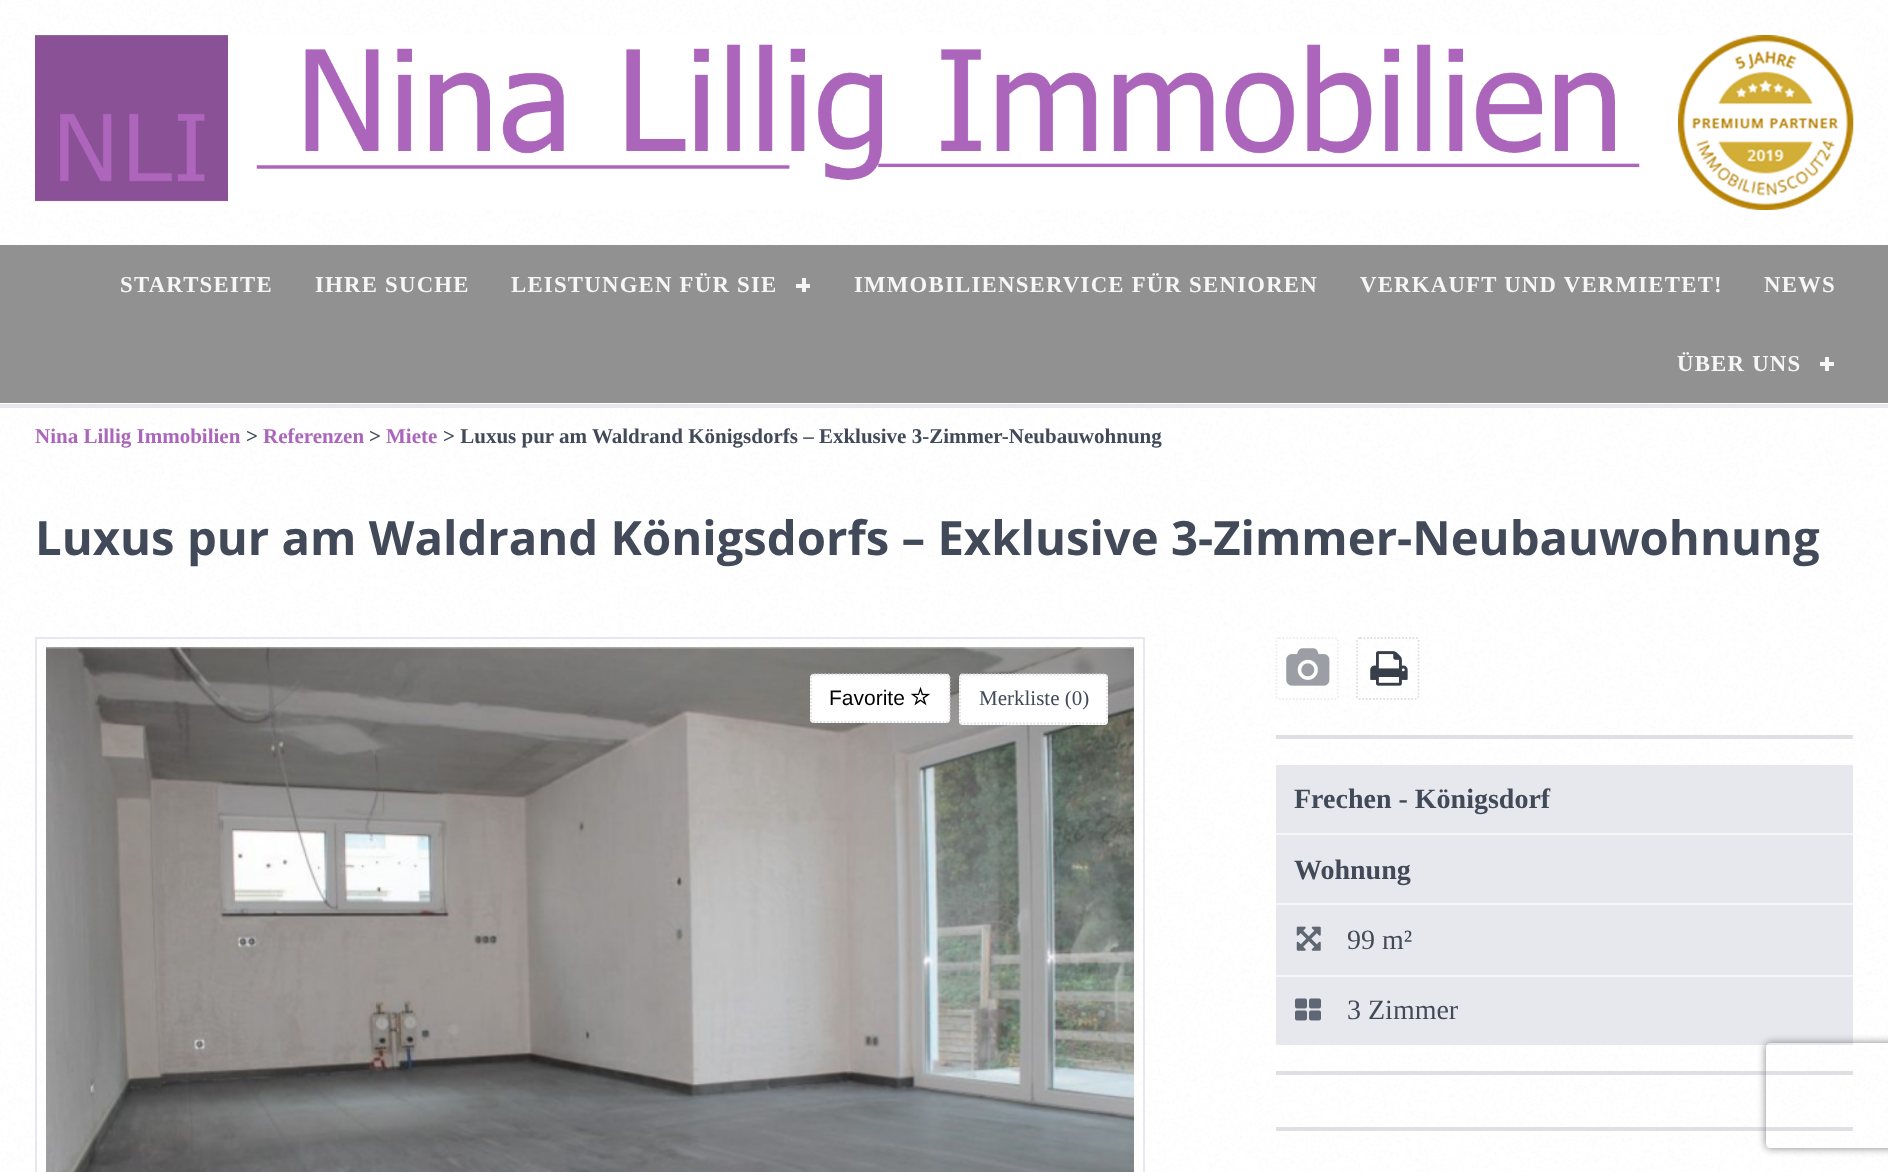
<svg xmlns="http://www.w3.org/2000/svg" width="1888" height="1172">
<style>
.a{font:bold 22.75px Liberation Serif;letter-spacing:1.25px;fill:#f6f6f6}
.b{font:bold 21px Liberation Serif;fill:#ab66bb}
.c{font:bold 21px Liberation Serif;fill:#424a59}
.d{font:bold 47.25px Open Sans;fill:#424a59}
.e{font:21px Liberation Sans;fill:#000}
.f{font:21px Liberation Serif;fill:#424a59}
.g{font:bold 28px Liberation Serif;fill:#424a59}
.h{font:28px Liberation Serif;fill:#424a59}
</style>
<defs>
<clipPath id="clip1"><path d="M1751 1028h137v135h-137zm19 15h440c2 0 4 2 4 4v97c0 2-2 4-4 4h-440c-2 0-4-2-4-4v-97c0-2 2-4 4-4z" clip-rule="evenodd"/></clipPath>
</defs>
<rect width="100%" height="100%" fill="#fff"/>
<image href="1.png" x="0" y="0" width="1888" height="1172"/>
<image href="2.png" x="35" y="35" width="1819" height="175"/>
<path fill="#919191" d="M0 245h1888v158H0z"/>
<path fill="#f6f6f6" d="M802 278h4v14H802z"/>
<path fill="#f6f6f6" d="M796 284h14v4H796z"/>
<path fill="#f6f6f6" d="M1825 357h4v14H1825z"/>
<path fill="#f6f6f6" d="M1820 362h14v4H1820z"/>
<path fill="#e6e8ed" d="M0 404h1888v4H0z"/>
<path fill="none" stroke="#e6e8ed" stroke-width="2" d="M36 638h1108v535H36z"/>
<image href="3.png" x="46" y="647" width="1088" height="525"/>
<rect fill="#fff" x="810" y="674" width="140" height="49" rx="4"/>
<path fill="none" stroke="#dee0e4" stroke-width="1.8" stroke-dasharray="1.75 1.75" d="M814 674.5h133c1 0 2.5 1.5 2.5 2.5v42c0 1.5-1.5 3-2.5 3h-133c-1.5 0-3-1.5-3-3v-42c0-1 1.5-2.5 3-2.5z"/>
<image href="4.png" x="910" y="686" width="21" height="20"/>
<rect fill="#fff" x="959" y="674" width="149" height="51" rx="4"/>
<path fill="none" stroke="#dee0e4" stroke-width="1.8" stroke-dasharray="1.75 1.75" d="M962.5 674.5h141.5c1.5 0 3 1.5 3 2.5v44c0 1.5-1.5 2.5-3 2.5h-141.5c-1.5 0-2.5-1-2.5-2.5v-44c0-1 1-2.5 2.5-2.5z"/>
<path fill="#dee0e4" d="M1276 735h577v4H1276z"/>
<path fill="none" stroke="#dee0e480" stroke-width="1.8" stroke-dasharray="1.75 1.75" d="M1279 638h56c1.5 0 3 1 3 2.5v56c0 1.5-1.5 2.5-3 2.5h-56c-1 0-2.5-1-2.5-2.5v-56c0-1.5 1.5-2.5 2.5-2.5z"/>
<image href="5.png" x="1286" y="648" width="44" height="38"/>
<path fill="none" stroke="#dee0e4" stroke-width="1.8" stroke-dasharray="1.75 1.75" d="M1360 638h56c1 0 2.5 1 2.5 2.5v56c0 1.5-1.5 2.5-2.5 2.5h-56c-1.5 0-3-1-3-2.5v-56c0-1.5 1.5-2.5 3-2.5z"/>
<image href="6.png" x="1370" y="651" width="38" height="35"/>
<path fill="#e6e8ed" d="M1276 765h577v280H1276z"/>
<path fill="#f6f6f6" d="M1276 833h577v2H1276z"/>
<path fill="#f6f6f6" d="M1276 903h577v2H1276z"/>
<path fill="#f6f6f6" d="M1276 975h577v2H1276z"/>
<image href="7.png" x="1296" y="926" width="25" height="25"/>
<image href="8.png" x="1295" y="998" width="26" height="23"/>
<path fill="#dee0e4" d="M1276 1071h577v4H1276z"/>
<path fill="#dee0e4" d="M1276 1127h577v4H1276z"/>
<g clip-path="url(#clip1)">
<rect fill="#808080" filter="blur(4.5px)" x="1766" y="1043" width="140" height="105" rx="4"/>
</g>
<text class="a" x="120" y="292">STARTSEITE</text>
<text class="a" x="315" y="292">IHRE SUCHE</text>
<text class="a" x="511" y="292">LEISTUNGEN FÜR SIE</text>
<text class="a" x="854" y="292">IMMOBILIENSERVICE FÜR SENIOREN</text>
<text class="a" x="1360" y="292">VERKAUFT UND VERMIETET!</text>
<text class="a" x="1764" y="292">NEWS</text>
<text class="a" x="1677" y="371">ÜBER UNS</text>
<text class="b" x="35" y="443">Nina Lillig Immobilien</text>
<text class="c" x="246" y="443">&gt;</text>
<text class="b" x="263" y="443">Referenzen</text>
<text class="c" x="369" y="443">&gt;</text>
<text class="b" x="386" y="443">Miete</text>
<text class="c" x="443" y="443">&gt; Luxus pur am Waldrand Königsdorfs – Exklusive 3-Zimmer-Neubauwohnung</text>
<text class="d" x="35" y="555">Luxus pur am Waldrand Königsdorfs – Exklusive 3-Zimmer-Neubauwohnung</text>
<text class="e" x="829" y="705">Favorite</text>
<text class="f" x="979" y="705">Merkliste (0)</text>
<text class="g" x="1294" y="808">Frechen - Königsdorf</text>
<text class="g" x="1294" y="879">Wohnung</text>
<text class="h" x="1347" y="949">99 m²</text>
<text class="h" x="1347" y="1019">3 Zimmer</text>
</svg>
